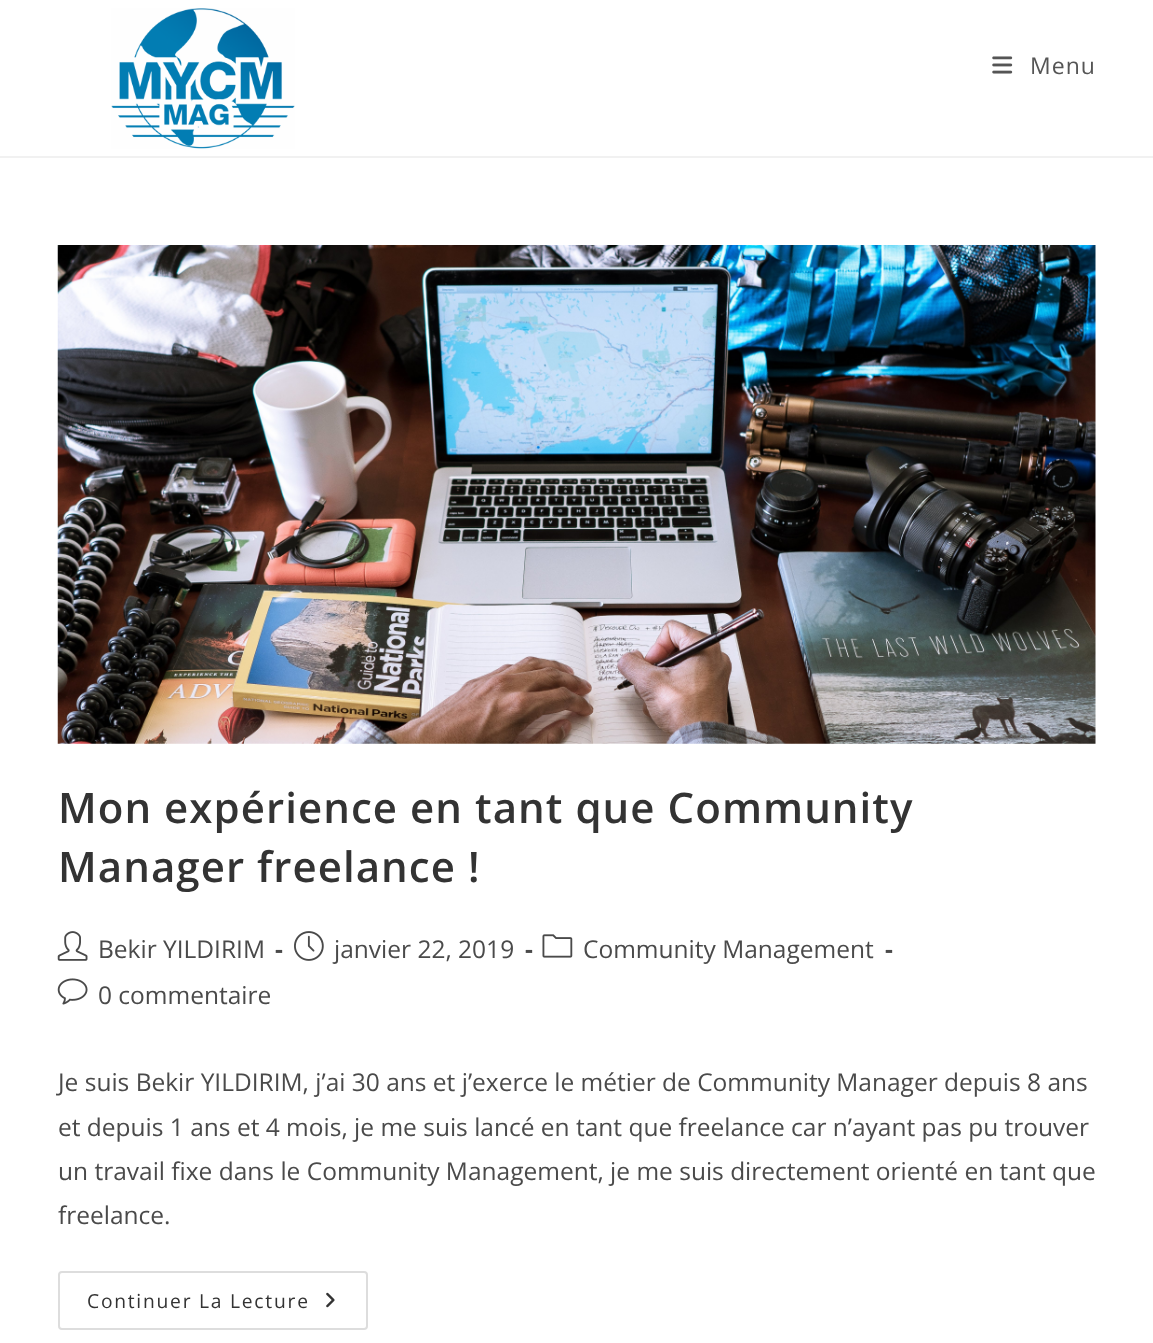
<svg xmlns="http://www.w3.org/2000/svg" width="1153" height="1343">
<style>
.a{font:23px Open Sans;letter-spacing:1.05px;fill:#555}
.b{font:600 42px Open Sans;letter-spacing:1.05px;fill:#333}
.c{font:24.5px Open Sans;fill:#4a4a4a}
.d{font:bold 24.5px Open Sans;fill:#4a4a4a}
.e{font:19.25px Open Sans;letter-spacing:1.75px;fill:#333}
</style>
<rect width="100%" height="100%" fill="#fff"/>
<path fill="#f1f1f1" d="M0 156h1153v2H0z"/>
<image href="1.png" x="111" y="8" width="184" height="141"/>
<image href="2.png" x="992" y="56" width="21" height="18"/>
<image href="3.png" x="57" y="245" width="1039" height="499"/>
<image href="4.png" x="57" y="931" width="31" height="30"/>
<image href="5.png" x="294" y="931" width="30" height="30"/>
<image href="6.png" x="542" y="934" width="31" height="24"/>
<image href="7.png" x="57" y="978" width="31" height="27"/>
<rect fill="none" stroke="#ddd" stroke-width="2" x="59" y="1272" width="308" height="57" rx="3"/>
<image href="8.png" x="326" y="1292" width="9" height="16"/>
<text class="a" x="1030" y="74">Menu</text>
<text class="b" x="58" y="823">Mon expérience en tant que Community</text>
<text class="b" x="58" y="882">Manager freelance !</text>
<text class="c" x="98" y="958">Bekir YILDIRIM</text>
<text class="d" x="275" y="958">-</text>
<text class="c" x="334" y="958">janvier 22, 2019</text>
<text class="d" x="525" y="958">-</text>
<text class="c" x="583" y="958">Community Management</text>
<text class="d" x="885" y="958">-</text>
<text class="c" x="98" y="1004">0 commentaire</text>
<text class="c" x="58" y="1091">Je suis Bekir YILDIRIM, j’ai 30 ans et j’exerce le métier de Community Manager depuis 8 ans</text>
<text class="c" x="58" y="1136">et depuis 1 ans et 4 mois, je me suis lancé en tant que freelance car n’ayant pas pu trouver</text>
<text class="c" x="58" y="1180">un travail fixe dans le Community Management, je me suis directement orienté en tant que</text>
<text class="c" x="58" y="1224">freelance.</text>
<text class="e" x="87" y="1308">Continuer La Lecture</text>
</svg>
